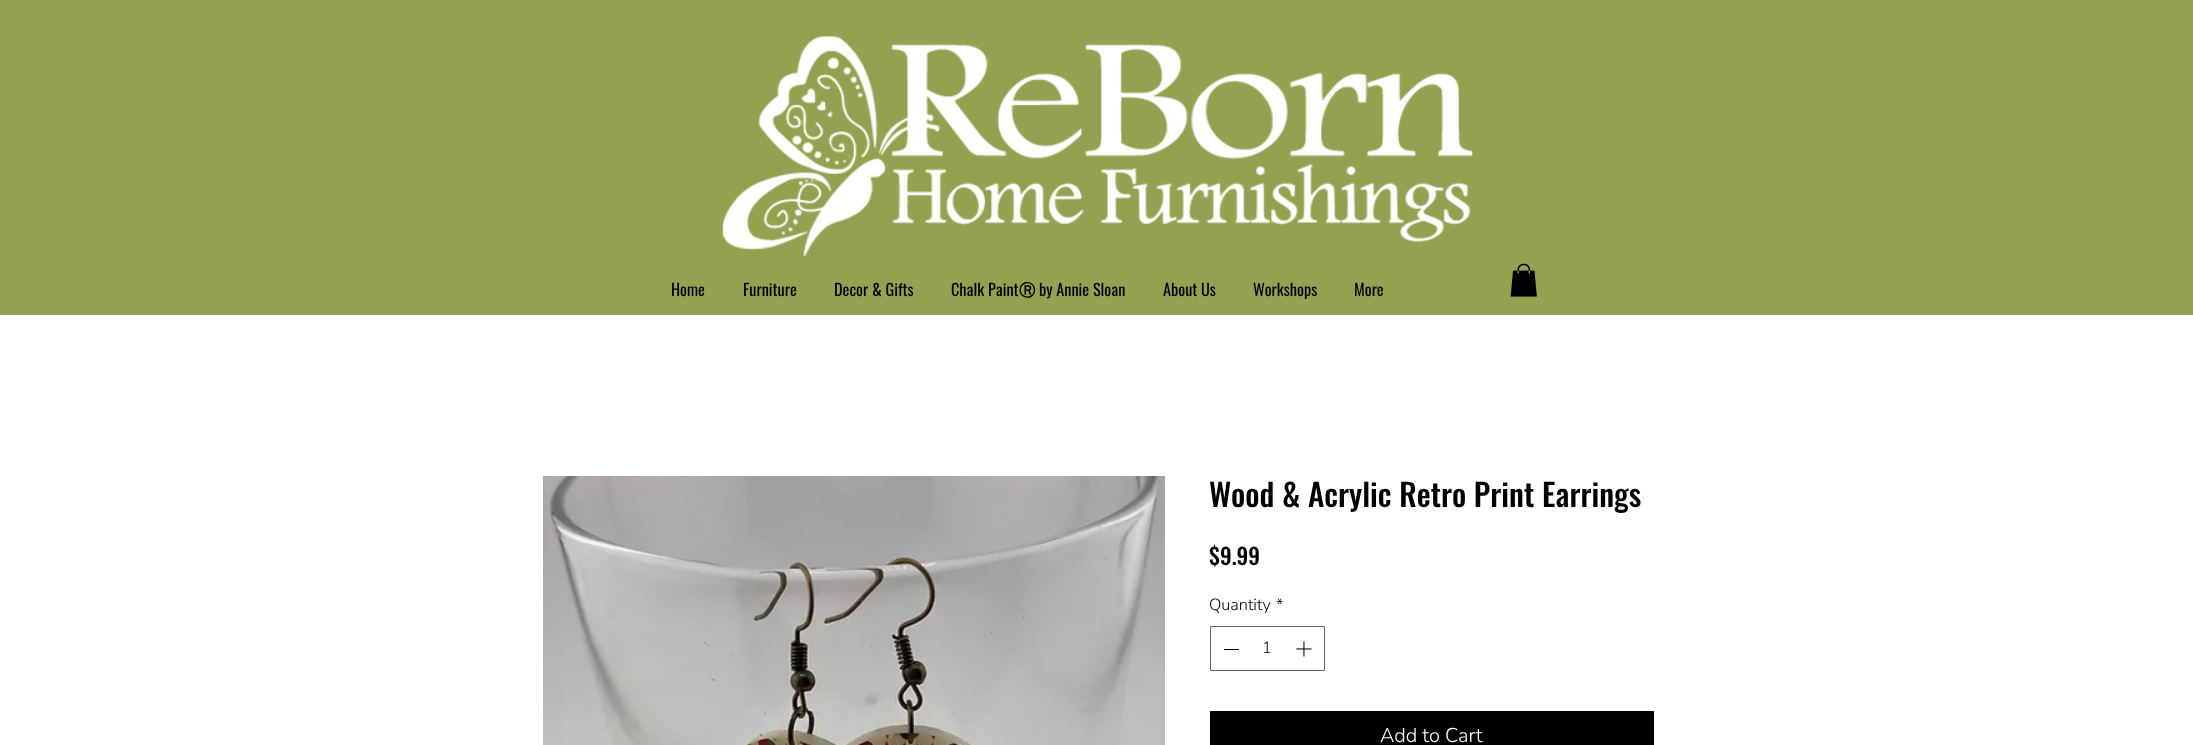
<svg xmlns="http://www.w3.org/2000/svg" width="2193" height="745">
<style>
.a{font:16.25px Oswald;fill:#000}
.b{font:bold 16.25px WenQuanYi Zen Hei;fill:#000}
.c{font:500 31.25px Oswald;fill:#000}
.d{font:500 22.5px Oswald;fill:#000}
.e{font:300 16.25px Nunito Sans;fill:#000}
.f{font:300 20px Nunito Sans;fill:#fff}
</style>
<rect width="100%" height="100%" fill="#fff"/>
<path fill="#96a051" d="M0 0h2193v315H0z"/>
<image href="1.png" x="722" y="36" width="751" height="221"/>
<image href="2.png" x="1510" y="263" width="27" height="34"/>
<image href="3.png" x="543" y="476" width="622" height="269"/>
<path fill="none" stroke="#666" d="M1210.5 626.5h114v44H1210.5z"/>
<path fill="#000" d="M1224 649h15v1H1224z"/>
<image href="4.png" x="1296" y="641" width="16" height="16"/>
<path fill="#000" d="M1210 711h444v34H1210z"/>
<text class="a" x="671" y="296">Home</text>
<text class="a" x="743" y="296">Furniture</text>
<text class="a" x="834" y="296">Decor &amp; Gifts</text>
<text class="a" x="951" y="296">Chalk Paint</text>
<text class="b" x="1019" y="296">Ⓡ</text>
<text class="a" x="1039" y="296">by Annie Sloan</text>
<text class="a" x="1163" y="296">About Us</text>
<text class="a" x="1253" y="296">Workshops</text>
<text class="a" x="1354" y="296">More</text>
<text class="c" x="1209" y="507">Wood &amp; Acrylic Retro Print Earrings</text>
<text class="d" x="1209" y="565">$9.99</text>
<text class="e" x="1209" y="610">Quantity</text>
<text class="e" x="1276" y="610">*</text>
<text class="e" x="1262" y="653">1</text>
<text class="f" x="1380" y="742">Add to Cart</text>
</svg>
